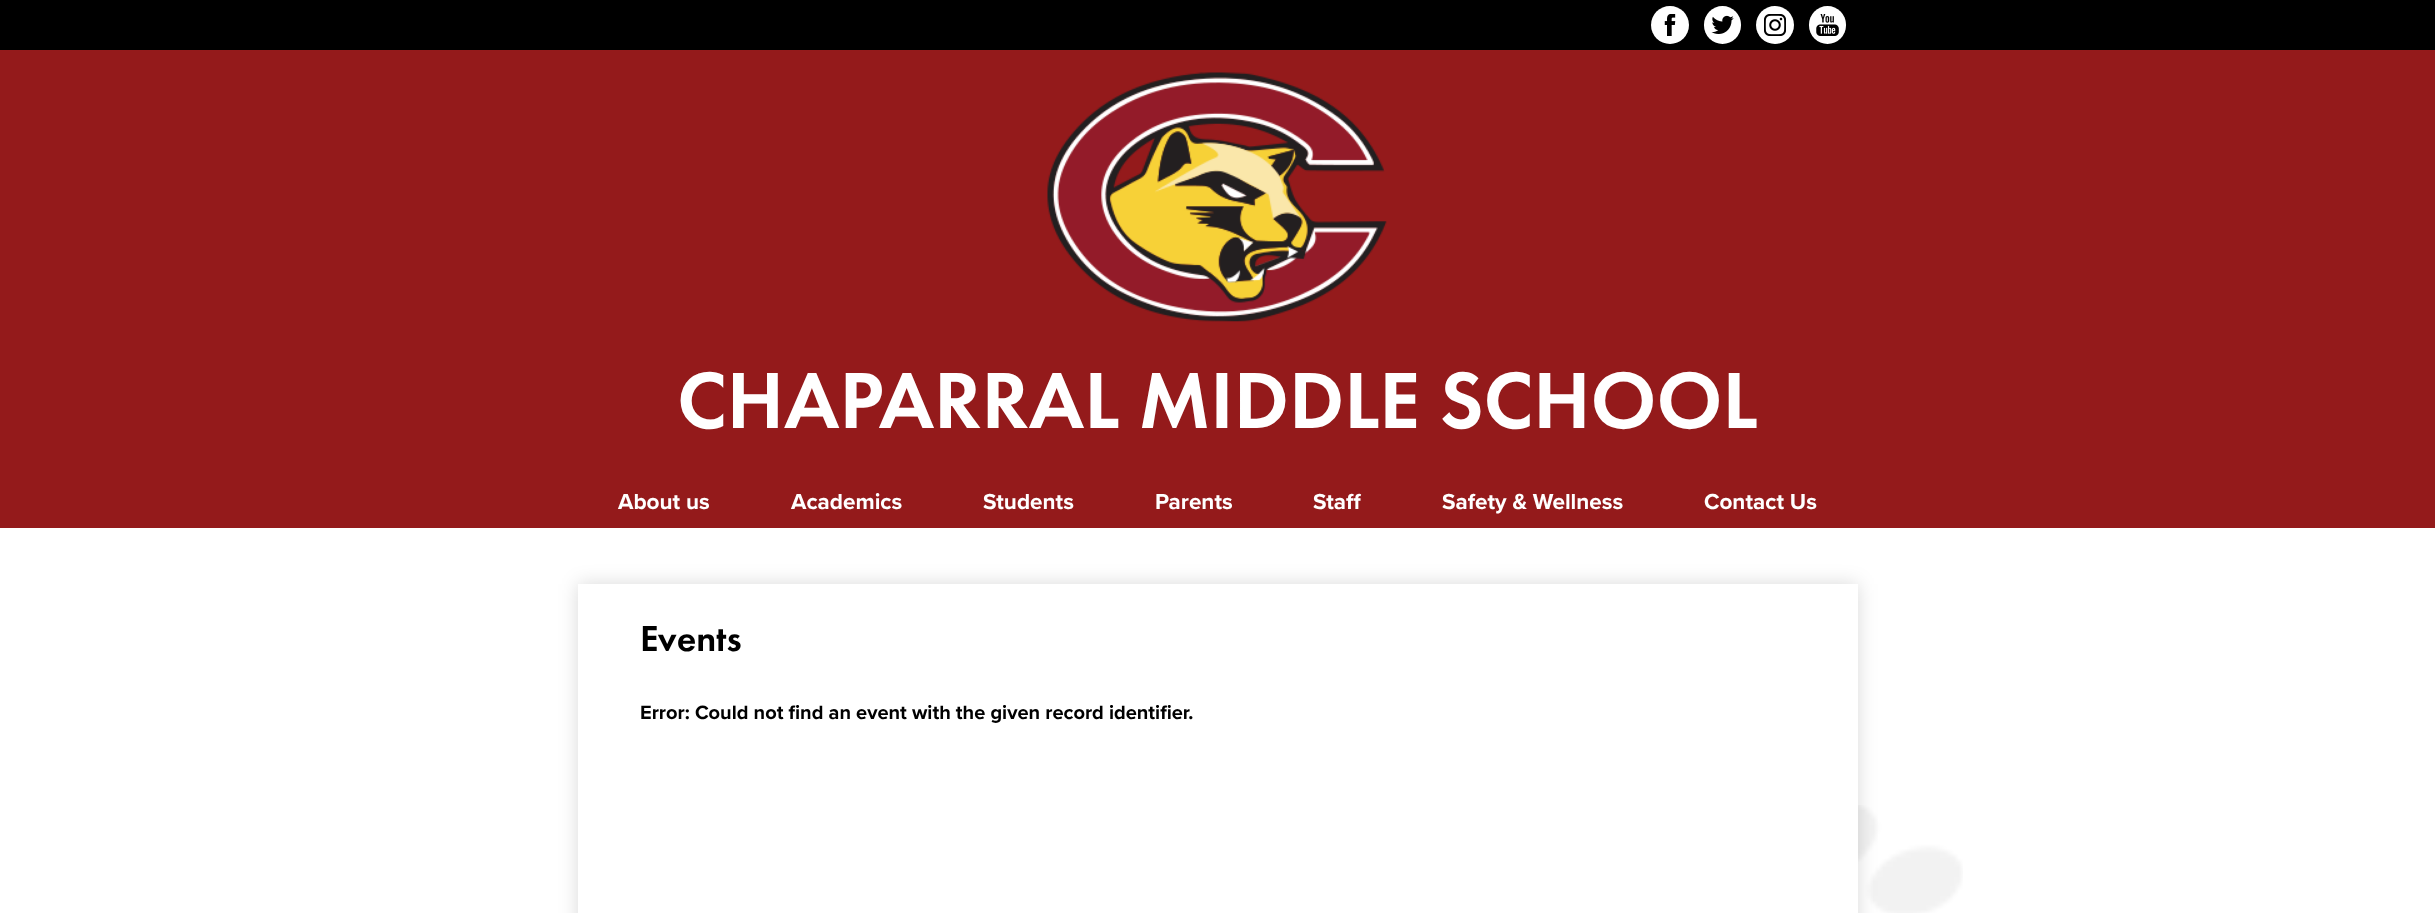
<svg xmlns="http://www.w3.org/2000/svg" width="2435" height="913">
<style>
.a{font:500 82.5px Futura PT;fill:#fff}
.b{font:bold 22.5px Proxima Nova;fill:#fff}
.c{font:500 37.5px Futura PT;fill:#000}
.d{font:bold 20px Proxima Nova;fill:#000}
</style>
<rect width="100%" height="100%" fill="#fff"/>
<image href="1.png" x="1858" y="805" width="105" height="108"/>
<path fill="#941a1b" d="M0 50h2435v478H0z"/>
<path fill="#000" d="M0 0h2435v50H0z"/>
<circle fill="#fff" cx="1670" cy="25" r="19"/>
<image href="2.png" x="1664" y="14" width="12" height="22"/>
<rect fill="#fff" x="1704" y="6" width="37" height="38" rx="18.5"/>
<image href="3.png" x="1711" y="15" width="23" height="19"/>
<circle fill="#fff" cx="1775" cy="25" r="19"/>
<image href="4.png" x="1764" y="14" width="22" height="22"/>
<rect fill="#fff" x="1809" y="6" width="37" height="38" rx="18.5"/>
<image href="5.png" x="1816" y="14" width="23" height="22"/>
<image href="6.png" x="1047" y="72" width="340" height="250"/>
<path fill="#00000026" filter="blur(9.5px)" d="M578 584h1280v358H578z"/>
<path fill="#fff" d="M578 584h1280v329H578z"/>
<text class="a" x="677" y="428">CHAPARRAL MIDDLE SCHOOL</text>
<text class="b" x="618" y="509">About us</text>
<text class="b" x="791" y="509">Academics</text>
<text class="b" x="983" y="509">Students</text>
<text class="b" x="1155" y="509">Parents</text>
<text class="b" x="1313" y="509">Staff</text>
<text class="b" x="1442" y="509">Safety &amp; Wellness</text>
<text class="b" x="1704" y="509">Contact Us</text>
<text class="c" x="640" y="651">Events</text>
<text class="d" x="640" y="719">Error: Could not find an event with the given record identifier.</text>
</svg>
